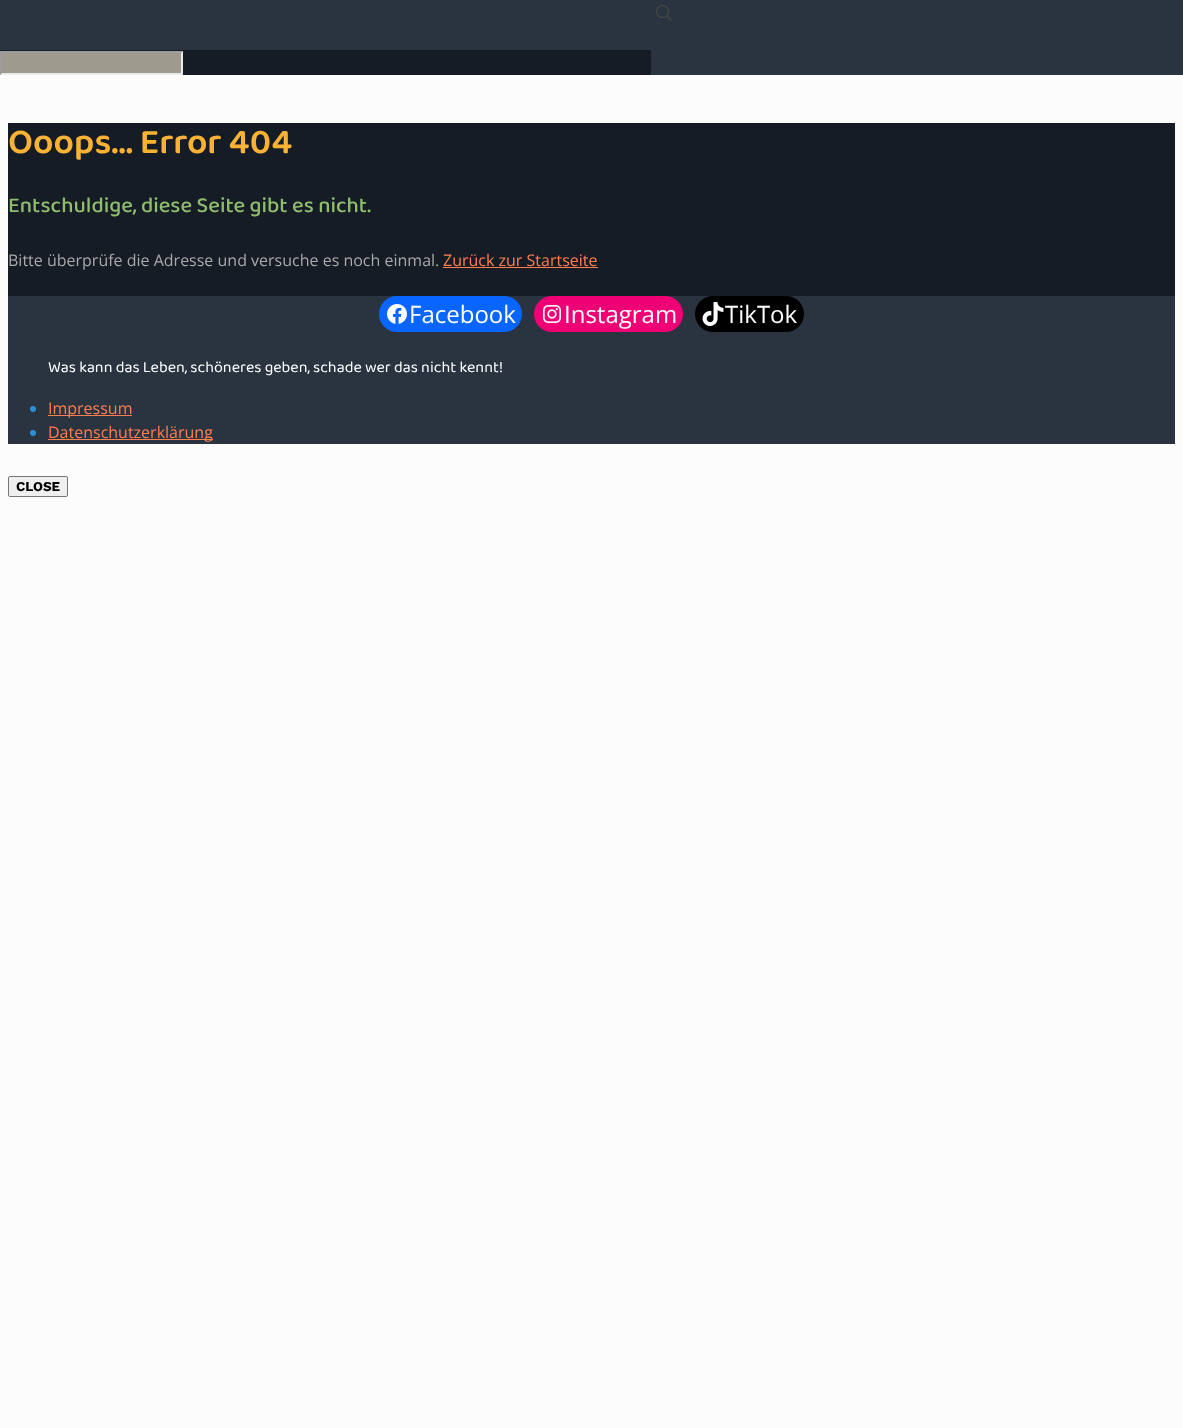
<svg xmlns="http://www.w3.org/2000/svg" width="1183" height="1428">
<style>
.a{font:600 36px 'Baloo 2';fill:#f9b233}
.b{font:500 22px 'Baloo 2';fill:#90be6d}
.c{font:16px Open Sans;fill:#a8a9ab}
.d{font:16px Open Sans;fill:#ff7f50}
.e{font:24px Open Sans;fill:#fff}
.f{font:16px 'Baloo 2';fill:#fff}
.g{font:bold 13.5px Work Sans;fill:#000}
</style>
<rect width="100%" height="100%" fill="#fcfcfc"/>
<path fill="#293440" d="M0 0h1183v75H0z"/>
<circle fill="none" stroke="#444" stroke-width="1.5" cx="662.5" cy="11.5" r="6"/>
<path fill="none" stroke="#444" stroke-width="1.5" d="M666.5 15.5l5 5"/>
<path fill="#161c25" d="M0 50h651v25H0z"/>
<path fill="#9f9a8e" d="M0 51h183v24H0z"/>
<path fill="#9d9d9d" d="M0 51h183l-2 2h-179z"/>
<path fill="#ebebeb" d="M183 51v24l-2-2v-20z"/>
<path fill="#ebebeb" d="M183 75h-183l2-2h179z"/>
<path fill="#9d9d9d" d="M0 75v-24l2 2v20z"/>
<path fill="#161c25" d="M8 123h1167v173H8z"/>
<path fill="#ff7f50" d="M443 267h155v1H443z"/>
<path fill="#293440" d="M8 296h1167v148H8z"/>
<rect fill="#0866ff" x="379" y="296" width="143" height="36" rx="18"/>
<image href="1.png" x="387" y="304" width="20" height="20"/>
<rect fill="#f00075" x="534" y="296" width="149" height="36" rx="18"/>
<image href="2.png" x="543" y="305" width="18" height="18"/>
<rect fill="#000" x="695" y="296" width="109" height="36" rx="18"/>
<image href="3.png" x="702" y="302" width="22" height="24"/>
<circle fill="#2991d6" cx="33" cy="409" r="3"/>
<path fill="#ff7f50" d="M48 415h84v1H48z"/>
<circle fill="#2991d6" cx="33" cy="433" r="3"/>
<path fill="#ff7f50" d="M48 439h165v1H48z"/>
<rect fill="#efefef" stroke="#767676" x="8.5" y="476.5" width="59" height="20" rx="1.5"/>
<text class="a" x="8" y="153">Ooops... Error 404</text>
<text class="b" x="8" y="212">Entschuldige, diese Seite gibt es nicht.</text>
<text class="c" x="8" y="266">Bitte überprüfe die Adresse und versuche es noch einmal.</text>
<text class="d" x="443" y="266">Zurück zur Startseite</text>
<text class="e" x="409" y="323">Facebook</text>
<text class="e" x="564" y="323">Instagram</text>
<text class="e" x="725" y="323">TikTok</text>
<text class="f" x="48" y="372">Was kann das Leben, schöneres geben, schade wer das nicht kennt!</text>
<text class="d" x="48" y="414">Impressum</text>
<text class="d" x="48" y="438">Datenschutzerklärung</text>
<text class="g" x="16" y="491">CLOSE</text>
</svg>
